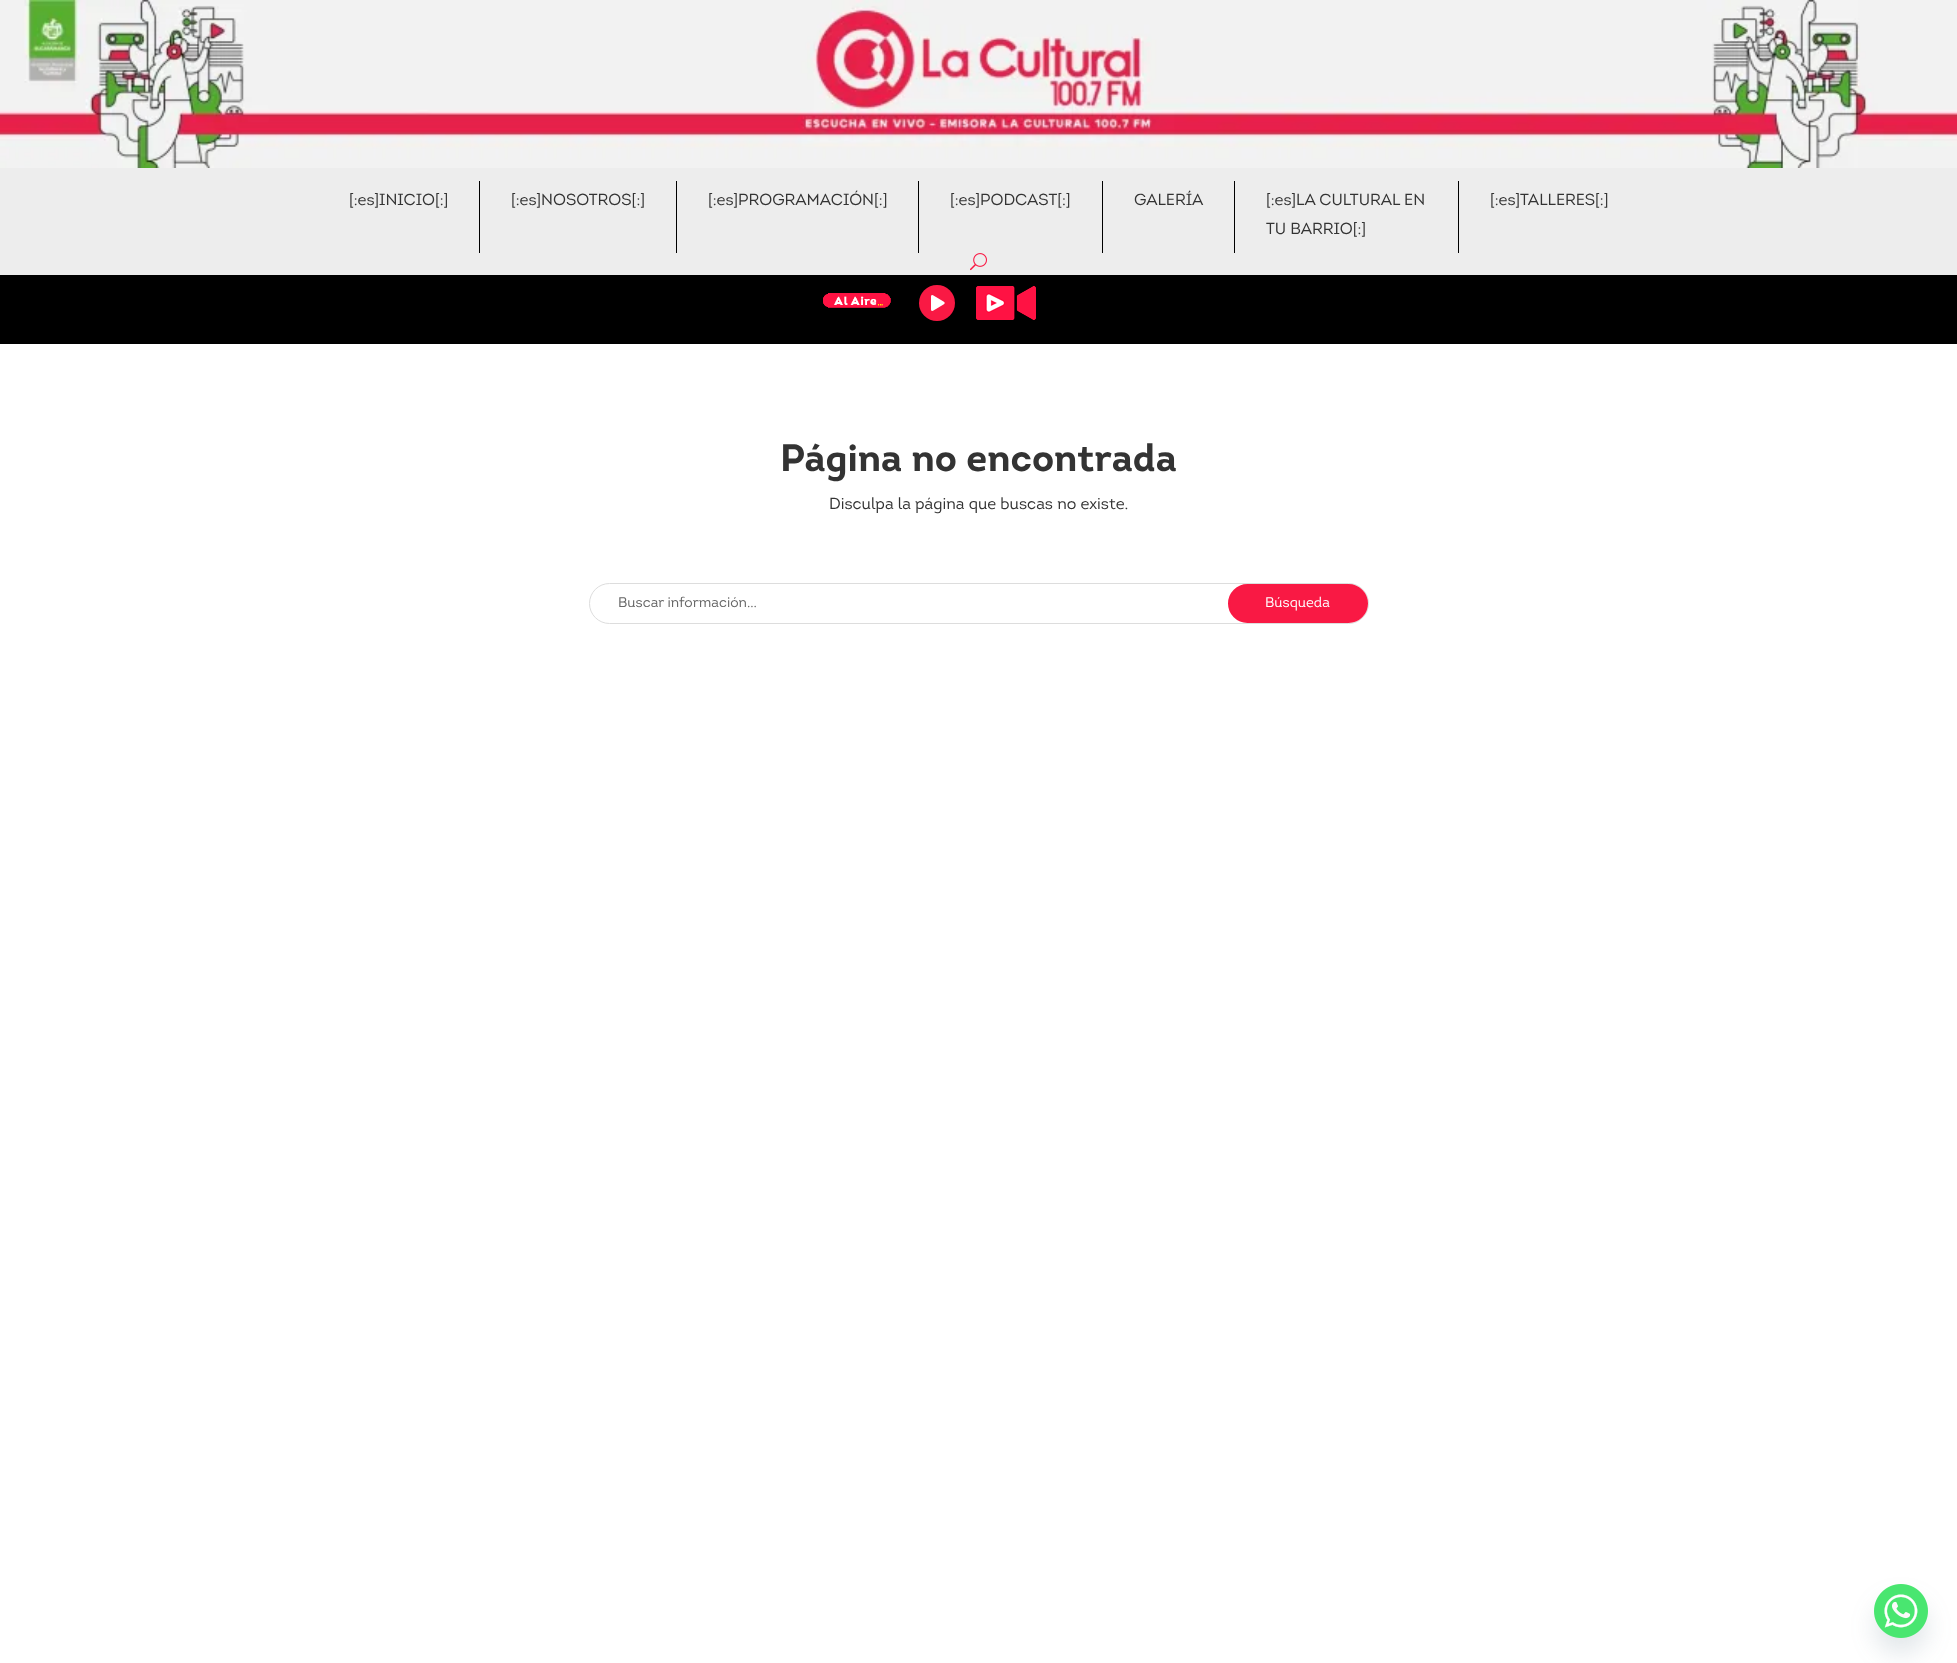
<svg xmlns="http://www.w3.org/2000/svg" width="1957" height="1663">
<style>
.a{font:16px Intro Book;fill:#333}
.b{font:bold 38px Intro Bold;fill:#333}
.c{font:14px Intro Book;fill:#666}
.d{font:14px Intro Book;fill:#fff}
</style>
<rect width="100%" height="100%" fill="#fff"/>
<image href="1.png" x="0" y="0" width="1957" height="168"/>
<path fill="#ededed" d="M0 168h1957v107H0z"/>
<path fill="#000" d="M479 181h1v72H479z"/>
<path fill="#000" d="M676 181h1v72H676z"/>
<path fill="#000" d="M918 181h1v72H918z"/>
<path fill="#000" d="M1102 181h1v72H1102z"/>
<path fill="#000" d="M1234 181h1v72H1234z"/>
<path fill="#000" d="M1458 181h1v72H1458z"/>
<image href="2.png" x="970" y="253" width="17" height="18"/>
<path fill="#000" d="M0 275h1957v69H0z"/>
<image href="3.png" x="823" y="293" width="68" height="15"/>
<circle fill="#f91944" cx="937" cy="303" r="18"/>
<image href="4.png" x="931" y="295" width="14" height="16"/>
<image href="5.png" x="976" y="286" width="60" height="34"/>
<rect fill="none" stroke="#ddd" x="589.5" y="583.5" width="779" height="40" rx="20"/>
<rect fill="#f91944" stroke="#f91944" stroke-width="2" x="1229" y="585" width="138" height="37" rx="18.5"/>
<rect fill="#49687e29" filter="blur(12px)" x="1874" y="1600" width="54" height="54" rx="27"/>
<image href="6.png" x="1874" y="1584" width="54" height="54"/>
<text class="a" x="349" y="205">[:es]INICIO[:]</text>
<text class="a" x="511" y="205">[:es]NOSOTROS[:]</text>
<text class="a" x="708" y="205">[:es]PROGRAMACIÓN[:]</text>
<text class="a" x="950" y="205">[:es]PODCAST[:]</text>
<text class="a" x="1134" y="205">GALERÍA</text>
<text class="a" x="1266" y="205">[:es]LA CULTURAL EN</text>
<text class="a" x="1266" y="234">TU BARRIO[:]</text>
<text class="a" x="1490" y="205">[:es]TALLERES[:]</text>
<text class="b" x="780" y="471">Página no encontrada</text>
<text class="a" x="829" y="509">Disculpa la página que buscas no existe.</text>
<text class="c" x="618" y="607">Buscar información...</text>
<text class="d" x="1265" y="607">Búsqueda</text>
</svg>
